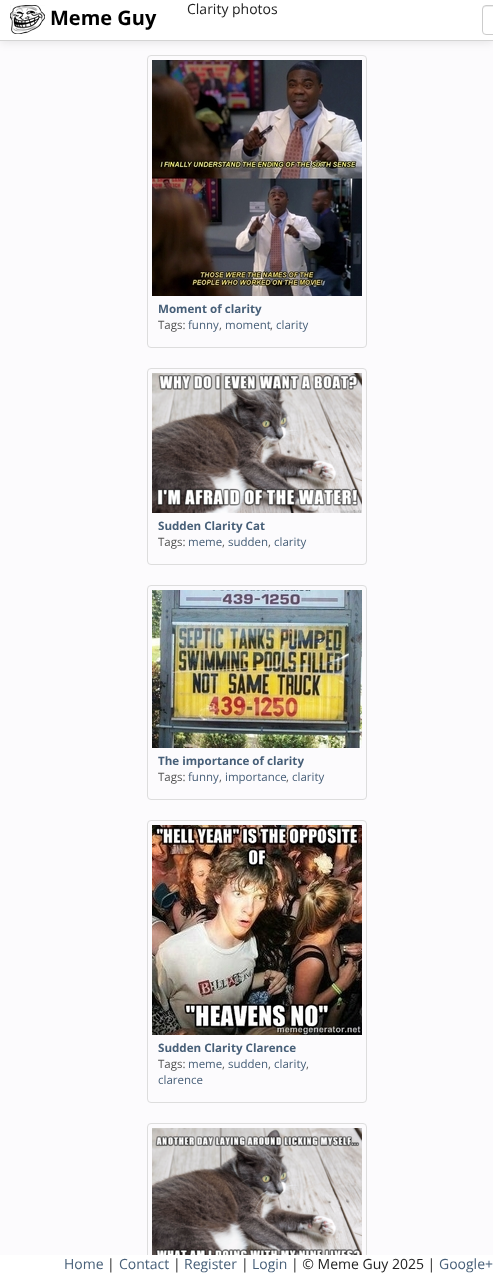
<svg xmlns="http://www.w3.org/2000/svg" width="493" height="1275">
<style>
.a{font:bold 20px Open Sans;fill:#000}
.b{font:14px Open Sans;fill:#222}
.c{font:bold 11.6px Open Sans;fill:#475f78}
.d{font:11.5px Open Sans;fill:#555}
.e{font:11.5px Open Sans;fill:#475f78}
.f{font:14px Open Sans;fill:#475f78}
</style>
<rect width="100%" height="100%" fill="#fcfbfd"/>
<rect fill="none" stroke="#ddd" x="147.5" y="55.5" width="219" height="292" rx="3.5"/>
<path fill="#0000001a" filter="blur(5px)" d="M0 1h493v41H0z"/>
<path fill="#fff" d="M0 0h493v40H0z"/>
<path fill="#d4d4d4" d="M0 40h493v1H0z"/>
<image href="1.png" x="10" y="5" width="35" height="29"/>
<path fill="#ececec" d="M486 7h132c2 0 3 1 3 3c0-2 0-4-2-4h-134c-2 0-2 2-2 4c0-2 1-3 3-3z"/>
<rect fill="none" stroke="#ccc" x="482.5" y="5.5" width="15" height="29" rx="3.5"/>
<image href="2.png" x="152" y="60" width="210" height="236"/>
<rect fill="none" stroke="#ddd" x="147.5" y="368.5" width="219" height="196" rx="3.5"/>
<image href="3.png" x="152" y="373" width="210" height="140"/>
<rect fill="none" stroke="#ddd" x="147.5" y="585.5" width="219" height="214" rx="3.5"/>
<image href="4.png" x="152" y="590" width="210" height="158"/>
<rect fill="none" stroke="#ddd" x="147.5" y="820.5" width="219" height="282" rx="3.5"/>
<image href="5.png" x="152" y="825" width="210" height="210"/>
<rect fill="none" stroke="#ddd" x="147.5" y="1123.5" width="219" height="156" rx="3.5"/>
<image href="6.png" x="152" y="1128" width="210" height="127"/>
<path fill="#fff" d="M0 1255h493v20H0z"/>
<text class="a" x="50" y="25">Meme Guy</text>
<text class="b" x="187" y="14">Clarity photos</text>
<text class="c" x="158" y="313">Moment of clarity</text>
<text class="d" x="158" y="329">Tags:</text>
<text class="e" x="188" y="329">funny</text>
<text class="d" x="219" y="329">,</text>
<text class="e" x="225" y="329">moment</text>
<text class="d" x="270" y="329">,</text>
<text class="e" x="276" y="329">clarity</text>
<text class="c" x="158" y="530">Sudden Clarity Cat</text>
<text class="d" x="158" y="546">Tags:</text>
<text class="e" x="188" y="546">meme</text>
<text class="d" x="222" y="546">,</text>
<text class="e" x="228" y="546">sudden</text>
<text class="d" x="268" y="546">,</text>
<text class="e" x="274" y="546">clarity</text>
<text class="c" x="158" y="765">The importance of clarity</text>
<text class="d" x="158" y="781">Tags:</text>
<text class="e" x="188" y="781">funny</text>
<text class="d" x="219" y="781">,</text>
<text class="e" x="225" y="781">importance</text>
<text class="d" x="286" y="781">,</text>
<text class="e" x="292" y="781">clarity</text>
<text class="c" x="158" y="1052">Sudden Clarity Clarence</text>
<text class="d" x="158" y="1068">Tags:</text>
<text class="e" x="188" y="1068">meme</text>
<text class="d" x="222" y="1068">,</text>
<text class="e" x="228" y="1068">sudden</text>
<text class="d" x="268" y="1068">,</text>
<text class="e" x="274" y="1068">clarity</text>
<text class="d" x="306" y="1068">,</text>
<text class="e" x="158" y="1084">clarence</text>
<text class="f" x="64" y="1269">Home</text>
<text class="b" x="107" y="1269">|</text>
<text class="f" x="119" y="1269">Contact</text>
<text class="b" x="173" y="1269">|</text>
<text class="f" x="184" y="1269">Register</text>
<text class="b" x="241" y="1269">|</text>
<text class="f" x="252" y="1269">Login</text>
<text class="b" x="291" y="1269">| © Meme Guy 2025 |</text>
<text class="f" x="439" y="1269">Google+</text>
</svg>
